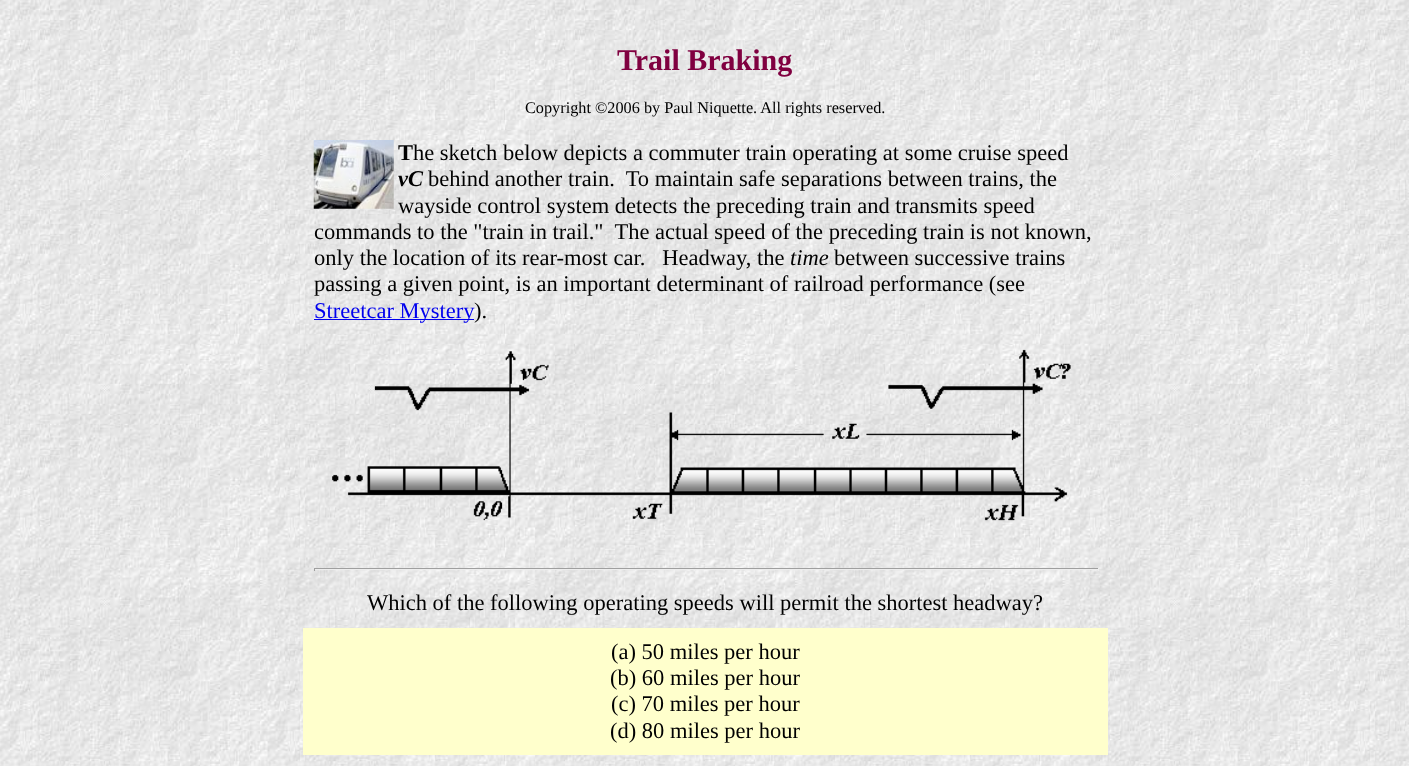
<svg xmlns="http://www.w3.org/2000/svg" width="1409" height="766">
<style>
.a{font:bold 30px Liberation Serif;fill:#800040}
.b{font:16.25px Liberation Serif;fill:#000}
.c{font:bold 22.5px Liberation Serif;fill:#000}
.d{font:22.5px Liberation Serif;fill:#000}
.e{font:italic bold 22.5px Liberation Serif;fill:#000}
.f{font:italic 22.5px Liberation Serif;fill:#000}
.g{font:22.5px Liberation Serif;fill:#00e}
</style>
<rect width="100%" height="100%" fill="#fff"/>
<image href="1.png" x="0" y="0" width="1409" height="766"/>
<image href="2.png" x="313" y="140" width="81" height="69"/>
<path fill="#00e" d="M314 319h160v1H314z"/>
<image href="3.png" x="332" y="349" width="739" height="172"/>
<path fill="#9f9f9f" d="M314 568h785v1H314z"/>
<path fill="#eee" d="M1098 568h1v3H1098z"/>
<path fill="#eee" d="M314 569h785v1H314z"/>
<path fill="#9f9f9f" d="M314 568h1v3H314z"/>
<path fill="#ffc" d="M303 628h805v127H303z"/>
<text class="a" x="617" y="70">Trail Braking</text>
<text class="b" x="525" y="113">Copyright ©2006 by Paul Niquette. All rights reserved.</text>
<text class="c" x="398" y="160">T</text>
<text class="d" x="413" y="160">he sketch below depicts a commuter train operating at some cruise speed</text>
<text class="e" x="398" y="186">vC</text>
<text class="d" xml:space="preserve" x="428" y="186">behind another train.  To maintain safe separations between trains, the</text>
<text class="d" x="398" y="213">wayside control system detects the preceding train and transmits speed</text>
<text class="d" xml:space="preserve" x="314" y="239">commands to the "train in trail."  The actual speed of the preceding train is not known,</text>
<text class="d" xml:space="preserve" x="314" y="265">only the location of its rear-most car.   Headway, the</text>
<text class="f" x="790" y="265">time</text>
<text class="d" x="834" y="265">between successive trains</text>
<text class="d" x="314" y="291">passing a given point, is an important determinant of railroad performance (see</text>
<text class="g" x="314" y="318">Streetcar Mystery</text>
<text class="d" x="474" y="318">).</text>
<text class="d" x="367" y="610">Which of the following operating speeds will permit the shortest headway?</text>
<text class="d" x="611" y="659">(a) 50 miles per hour</text>
<text class="d" x="610" y="685">(b) 60 miles per hour</text>
<text class="d" x="611" y="711">(c) 70 miles per hour</text>
<text class="d" x="610" y="738">(d) 80 miles per hour</text>
</svg>
